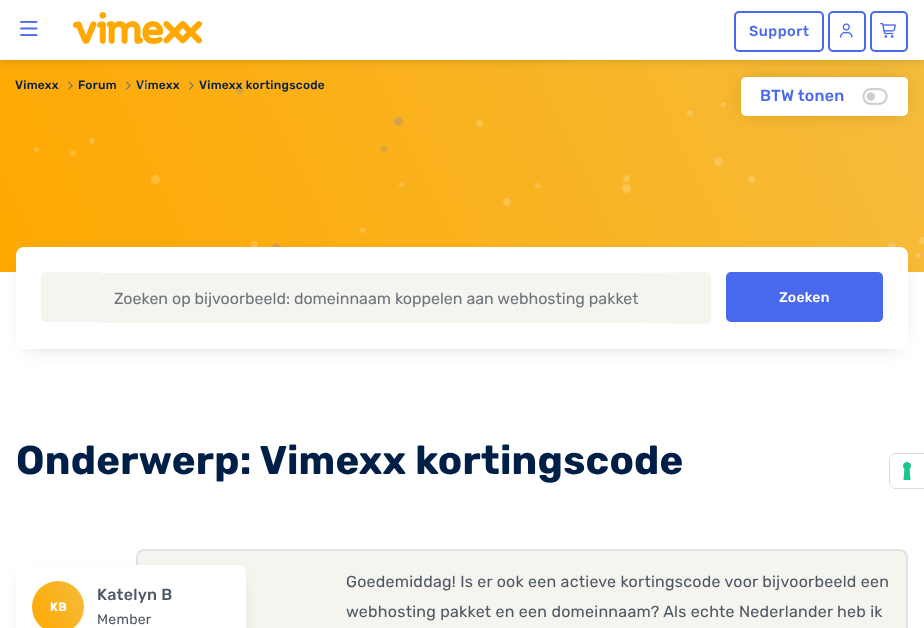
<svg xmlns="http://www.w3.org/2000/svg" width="924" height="628">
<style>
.a{font:500 14.5px Rubik;letter-spacing:0.5px;fill:#4969ed}
.b{font:500 12px Rubik;letter-spacing:0.25px;fill:#001f47}
.c{font:16px Rubik;fill:#6c757d}
.d{font:500 14px Rubik;letter-spacing:0.25px;fill:#fff}
.e{font:bold 40px Rubik;letter-spacing:0.25px;fill:#001f47}
.f{font:bold 12px Rubik;letter-spacing:0.25px;fill:#fff}
.g{font:500 16px Rubik;letter-spacing:0.25px;fill:#4d5865}
.h{font:14px Rubik;letter-spacing:0.25px;fill:#4d5865}
.i{font:16px Rubik;letter-spacing:0.25px;fill:#4d5865}
.j{font:500 16px Rubik;letter-spacing:0.25px;fill:#4969ed}
</style>
<defs>
<linearGradient id="g1" gradientUnits="userSpaceOnUse" x1="41" y1="360" x2="883" y2="-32"><stop offset="0" stop-color="#ffa801"/><stop offset="1" stop-color="#f5bc3c"/></linearGradient>
<linearGradient id="g2" gradientUnits="userSpaceOnUse" x1="27" y1="622" x2="89" y2="592"><stop offset="0" stop-color="#ffa801"/><stop offset="1" stop-color="#f5bc3c"/></linearGradient>
<linearGradient id="g3" gradientUnits="userSpaceOnUse" x1="632" y1="298" x2="711" y2="298"><stop offset="0" stop-color="#f5f4ef" stop-opacity="0"/><stop offset="1" stop-color="#f5f4ef"/></linearGradient>
</defs>
<rect width="100%" height="100%" fill="#fff"/>
<path fill="url(#g1)" d="M0 60h924v212H0z"/>
<path fill="#0000001a" filter="blur(3px)" d="M0 3h924v60H0z"/>
<circle fill="#f9c659" cx="723.5" cy="104.5" r="2.5"/>
<path fill="#0a050033" filter="blur(10px)" d="M746 82h157v29H746z"/>
<path fill="#fff" d="M0 0h924v60H0z"/>
<image href="1.png" x="20" y="21" width="18" height="15"/>
<image href="2.png" x="73" y="12" width="129" height="32"/>
<rect fill="none" stroke="#4969ed" stroke-width="2" x="735" y="12" width="88" height="39" rx="4"/>
<rect fill="none" stroke="#4969ed" stroke-width="2" x="829" y="12" width="36" height="39" rx="4"/>
<image href="3.png" x="840" y="23" width="13" height="15"/>
<rect fill="none" stroke="#4969ed" stroke-width="2" x="871" y="12" width="36" height="39" rx="4"/>
<image href="4.png" x="880" y="22" width="16" height="16"/>
<image href="5.png" x="68" y="81" width="5" height="9"/>
<image href="6.png" x="126" y="81" width="5" height="9"/>
<image href="7.png" x="189" y="81" width="5" height="9"/>
<circle fill="#f9c557" cx="690" cy="113" r="3"/>
<circle fill="#d7a346" cx="398.5" cy="121.5" r="4.5"/>
<circle fill="#fbc24d" cx="479.5" cy="123.5" r="3.5"/>
<circle fill="#febc3b" cx="92" cy="141" r="3"/>
<circle fill="#febb38" cx="36.5" cy="149.5" r="2.5"/>
<circle fill="#d7a344" cx="384" cy="149" r="3"/>
<circle fill="#febb3a" cx="73" cy="153" r="3"/>
<circle fill="#f9c557" cx="718.5" cy="161.5" r="4.5"/>
<circle fill="#fdbd3d" cx="155.5" cy="179.5" r="4.5"/>
<circle fill="#f9c453" cx="626.5" cy="178.5" r="3.5"/>
<circle fill="#f9c659" cx="751.5" cy="179.5" r="3.5"/>
<circle fill="#fcc148" cx="401.5" cy="184.5" r="2.5"/>
<circle fill="#fac24e" cx="537.5" cy="185.5" r="2.5"/>
<circle fill="#fac452" cx="626.5" cy="188.5" r="4.5"/>
<circle fill="#fbc24d" cx="507" cy="202" r="4"/>
<circle fill="#fcbf45" cx="362.5" cy="230.5" r="2.5"/>
<circle fill="#fdbd40" cx="254.5" cy="244.5" r="3.5"/>
<circle fill="#d8a03e" cx="276.5" cy="247.5" r="4.5"/>
<circle fill="#f8c85d" cx="892" cy="246" r="4"/>
<circle fill="#f8c85f" cx="922.5" cy="240.5" r="3.5"/>
<circle fill="#f8c85e" cx="918.5" cy="255.5" r="2.5"/>
<path fill="#00000033" filter="blur(10px)" d="M26 263h872v82H26z"/>
<rect fill="#fff" x="16" y="247" width="892" height="102" rx="8"/>
<path fill="#f5f4ef" d="M46 272h54v50h-54c-3 0-5-2-5-5v-40c0-3 2-5 5-5z"/>
<path fill="#f5f4ef" stroke="#f5f4ef" d="M100.5 273.5h605.5c2.5 0 4.5 2 4.5 4.5v40c0 2.5-2 4.5-4.5 4.5h-605.5z"/>
<rect fill="#4969ed" stroke="#4969ed" stroke-width="2" x="727" y="273" width="155" height="48" rx="4"/>
<rect fill="#f5f4ef" stroke="#e2e2e2" stroke-width="2" x="137" y="550" width="770" height="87" rx="7"/>
<path fill="#00000033" filter="blur(10px)" d="M26 581h210v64H26z"/>
<rect fill="#fff" x="16" y="565" width="230" height="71" rx="8"/>
<circle fill="url(#g2)" cx="58" cy="607" r="26"/>
<rect fill="#fff" x="741" y="77" width="167" height="39" rx="5"/>
<image href="8.png" x="862" y="88" width="26" height="17"/>
<path fill="none" stroke="#d9d9d9" d="M896 453.5h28.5v35h-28.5c-3.5 0-6.5-3-6.5-6.5v-22c0-3.5 3-6.5 6.5-6.5z"/>
<path fill="#fff" d="M896 454h28v34h-28c-3.5 0-6-2.5-6-6v-22c0-3.5 2.5-6 6-6z"/>
<image href="9.png" x="903" y="462" width="8" height="18"/>
<text class="a" x="749" y="36">Support</text>
<text class="b" x="15" y="89">Vimexx</text>
<text class="b" x="78" y="89">Forum</text>
<text class="b" x="136" y="89">Vimexx</text>
<text class="b" x="199" y="89">Vimexx kortingscode</text>
<circle fill="#ffffff33" cx="144" cy="86" r="4"/>
<circle fill="#4969ed33" cx="239.5" cy="90.5" r="3.5"/>
<text class="c" x="114" y="304">Zoeken op bijvoorbeeld: domeinnaam koppelen aan webhosting pakket</text>
<path fill="url(#g3)" d="M632 272h74c3 0 5 2 5 5v42c0 3-2 5-5 5h-74z"/>
<text class="d" x="779" y="302">Zoeken</text>
<text class="e" x="16" y="474">Onderwerp: Vimexx kortingscode</text>
<text class="f" x="50" y="611">KB</text>
<text class="g" x="97" y="600">Katelyn B</text>
<text class="h" x="97" y="624">Member</text>
<text class="i" x="346" y="587">Goedemiddag! Is er ook een actieve kortingscode voor bijvoorbeeld een</text>
<text class="i" x="346" y="617">webhosting pakket en een domeinnaam? Als echte Nederlander heb ik</text>
<text class="j" x="760" y="101">BTW tonen</text>
</svg>
